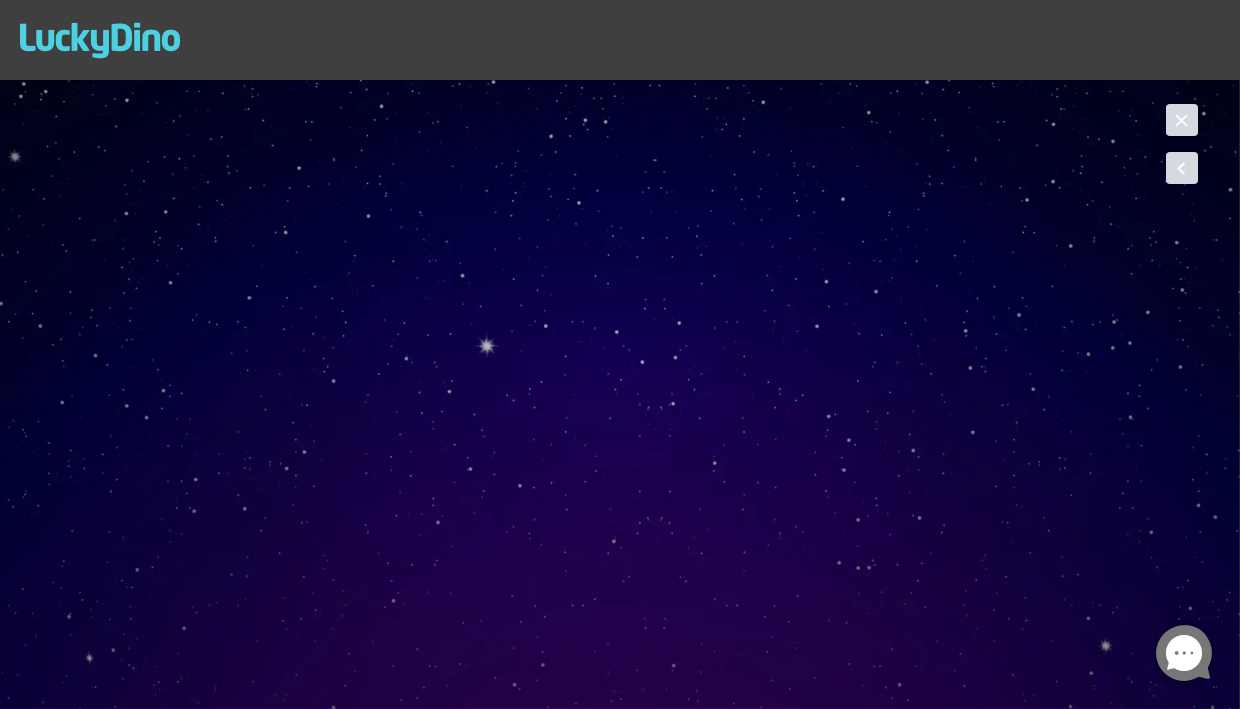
<svg xmlns="http://www.w3.org/2000/svg" width="1240" height="709">
<defs>
<linearGradient id="g1" gradientUnits="userSpaceOnUse" x1="1156" y1="681" x2="1212" y2="625"><stop offset="0" stop-color="#777"/><stop offset="1" stop-color="#222"/></linearGradient>
</defs>
<rect width="100%" height="100%" fill="#fff"/>
<path fill="#3f3f3f" d="M0 0h1240v80H0z"/>
<image href="1.png" x="20" y="22" width="160" height="37"/>
<image href="2.png" x="0" y="80" width="1240" height="629"/>
<rect fill="#d6d9df" x="1166" y="104" width="32" height="32" rx="4"/>
<image href="3.png" x="1175" y="114" width="13" height="13"/>
<rect fill="#d6d9df" x="1166" y="152" width="32" height="32" rx="4"/>
<image href="4.png" x="1177" y="162" width="8" height="13"/>
<rect fill="#00000033" filter="blur(3px)" x="1156" y="628" width="56" height="56" rx="28"/>
<circle fill="url(#g1)" cx="1184" cy="653" r="28"/>
<path fill="#777" d="M1204 633c-11-11-29-10-40 1c-10 11-10 28 0 38c9 10 23 11 34 5h2l8 2c1 0 2-1 2-2l-2-8v-2c6-10 5-24-4-34z"/>
<image href="5.png" x="1165" y="635" width="37" height="37"/>
<image href="6.png" x="1174" y="651" width="20" height="4"/>
</svg>
